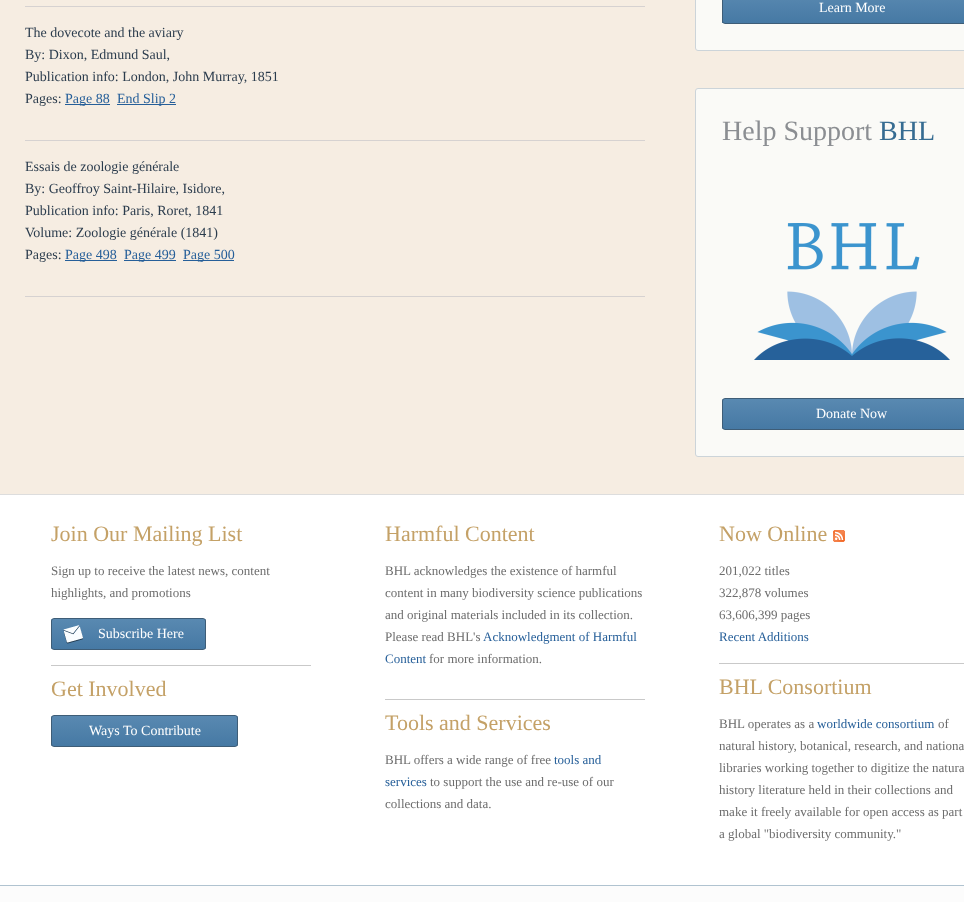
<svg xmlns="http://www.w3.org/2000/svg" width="964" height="902">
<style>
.a{font:14px Liberation Serif;fill:#2b3c4d}
.b{font:14px Liberation Serif;fill:#265f99}
.c{font:14px Liberation Serif;fill:#fff}
.d{font:28px Liberation Serif;fill:#8b8e92}
.e{font:28px Liberation Serif;fill:#366c92}
.f{font:22px Liberation Serif;fill:#c4a167}
.g{font:13px Liberation Serif;fill:#6d6d6d}
.h{font:13px Liberation Serif;fill:#265f99}
</style>
<defs>
<linearGradient id="g1" gradientUnits="userSpaceOnUse" x1="723" y1="-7" x2="723" y2="23"><stop offset="0" stop-color="#5989b1"/><stop offset="1" stop-color="#4679a4"/></linearGradient>
<clipPath id="clip1"><rect x="722" y="398" width="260" height="32" rx="3"/></clipPath>
<linearGradient id="g2" gradientUnits="userSpaceOnUse" x1="723" y1="399" x2="723" y2="429"><stop offset="0" stop-color="#5989b1"/><stop offset="1" stop-color="#4679a4"/></linearGradient>
<clipPath id="clip2"><rect x="51" y="618" width="155" height="32" rx="3"/></clipPath>
<linearGradient id="g3" gradientUnits="userSpaceOnUse" x1="52" y1="619" x2="52" y2="649"><stop offset="0" stop-color="#5989b1"/><stop offset="1" stop-color="#4679a4"/></linearGradient>
<clipPath id="clip3"><rect x="51" y="715" width="187" height="32" rx="3"/></clipPath>
<linearGradient id="g4" gradientUnits="userSpaceOnUse" x1="52" y1="716" x2="52" y2="746"><stop offset="0" stop-color="#5989b1"/><stop offset="1" stop-color="#4679a4"/></linearGradient>
</defs>
<rect width="100%" height="100%" fill="#f6ede2"/>
<path fill="#d6d2d1" d="M25 6h620v1H25z"/>
<path fill="#d6d2d1" d="M25 140h620v1H25z"/>
<path fill="#265f99" d="M65 104h45v1H65z"/>
<path fill="#265f99" d="M117 104h59v1H117z"/>
<path fill="#d6d2d1" d="M25 296h620v1H25z"/>
<path fill="#265f99" d="M65 260h52v1H65z"/>
<path fill="#265f99" d="M124 260h52v1H124z"/>
<path fill="#265f99" d="M183 260h51v1H183z"/>
<rect fill="#fafaf7" stroke="#ccd4d9" x="695.5" y="-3.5" width="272" height="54" rx="2.5"/>
<path fill="url(#g1)" d="M722 0h242v23H722z"/>
<rect fill="none" stroke="#3e5d77" x="722.5" y="-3.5" width="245" height="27" rx="2.5"/>
<rect fill="#fafaf7" stroke="#ccd4d9" x="695.5" y="88.5" width="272" height="368" rx="2.5"/>
<image href="1.png" x="754" y="223" width="196" height="137"/>
<g clip-path="url(#clip1)">
<path fill="url(#g2)" d="M722 399h242v30H722z"/>
</g>
<rect fill="none" stroke="#3e5d77" x="722.5" y="398.5" width="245" height="31" rx="2.5"/>
<path fill="#fff" d="M0 495h964v390H0z"/>
<path fill="#ddd" d="M0 494h964v1H0z"/>
<path fill="#c9c9c9" d="M51 665h260v1H51z"/>
<g clip-path="url(#clip2)">
<path fill="url(#g3)" d="M51 619h155v30H51z"/>
</g>
<rect fill="none" stroke="#3e5d77" x="51.5" y="618.5" width="154" height="31" rx="2.5"/>
<image href="2.png" x="63" y="625" width="20" height="19"/>
<g clip-path="url(#clip3)">
<path fill="url(#g4)" d="M51 716h187v30H51z"/>
</g>
<rect fill="none" stroke="#3e5d77" x="51.5" y="715.5" width="186" height="31" rx="2.5"/>
<path fill="#c9c9c9" d="M385 699h260v1H385z"/>
<image href="3.png" x="833" y="530" width="12" height="12"/>
<path fill="#c9c9c9" d="M719 663h245v1H719z"/>
<path fill="#fcfcfc" d="M0 886h964v16H0z"/>
<path fill="#b0c3d0" d="M0 885h964v1H0z"/>
<text class="a" x="25" y="37">The dovecote and the aviary</text>
<text class="a" x="25" y="59">By: Dixon, Edmund Saul,</text>
<text class="a" x="25" y="81">Publication info: London, John Murray, 1851</text>
<text class="a" x="25" y="103">Pages:</text>
<text class="b" x="65" y="103">Page 88</text>
<text class="b" x="117" y="103">End Slip 2</text>
<text class="a" x="25" y="171">Essais de zoologie générale</text>
<text class="a" x="25" y="193">By: Geoffroy Saint-Hilaire, Isidore,</text>
<text class="a" x="25" y="215">Publication info: Paris, Roret, 1841</text>
<text class="a" x="25" y="237">Volume: Zoologie générale (1841)</text>
<text class="a" x="25" y="259">Pages:</text>
<text class="b" x="65" y="259">Page 498</text>
<text class="b" x="124" y="259">Page 499</text>
<text class="b" x="183" y="259">Page 500</text>
<text class="c" x="819" y="12">Learn More</text>
<text class="d" x="722" y="140">Help Support</text>
<text class="e" x="879" y="140">BHL</text>
<text class="c" x="816" y="418">Donate Now</text>
<text class="f" x="51" y="541">Join Our Mailing List</text>
<text class="g" x="51" y="575">Sign up to receive the latest news, content</text>
<text class="g" x="51" y="597">highlights, and promotions</text>
<text class="c" x="98" y="638">Subscribe Here</text>
<text class="f" x="51" y="696">Get Involved</text>
<text class="c" x="89" y="735">Ways To Contribute</text>
<text class="f" x="385" y="541">Harmful Content</text>
<text class="g" x="385" y="575">BHL acknowledges the existence of harmful</text>
<text class="g" x="385" y="597">content in many biodiversity science publications</text>
<text class="g" x="385" y="619">and original materials included in its collection.</text>
<text class="g" x="385" y="641">Please read BHL's</text>
<text class="h" x="483" y="641">Acknowledgment of Harmful</text>
<text class="h" x="385" y="663">Content</text>
<text class="g" x="429" y="663">for more information.</text>
<text class="f" x="385" y="730">Tools and Services</text>
<text class="g" x="385" y="764">BHL offers a wide range of free</text>
<text class="h" x="554" y="764">tools and</text>
<text class="h" x="385" y="786">services</text>
<text class="g" x="430" y="786">to support the use and re-use of our</text>
<text class="g" x="385" y="808">collections and data.</text>
<text class="f" x="719" y="541">Now Online</text>
<text class="g" x="719" y="575">201,022 titles</text>
<text class="g" x="719" y="597">322,878 volumes</text>
<text class="g" x="719" y="619">63,606,399 pages</text>
<text class="h" x="719" y="641">Recent Additions</text>
<text class="f" x="719" y="694">BHL Consortium</text>
<text class="g" x="719" y="728">BHL operates as a</text>
<text class="h" x="817" y="728">worldwide consortium</text>
<text class="g" x="938" y="728">of</text>
<text class="g" x="719" y="750">natural history, botanical, research, and nationa</text>
<text class="g" x="719" y="772">libraries working together to digitize the natura</text>
<text class="g" x="719" y="794">history literature held in their collections and</text>
<text class="g" x="719" y="816">make it freely available for open access as part</text>
<text class="g" x="719" y="838">a global "biodiversity community."</text>
</svg>
